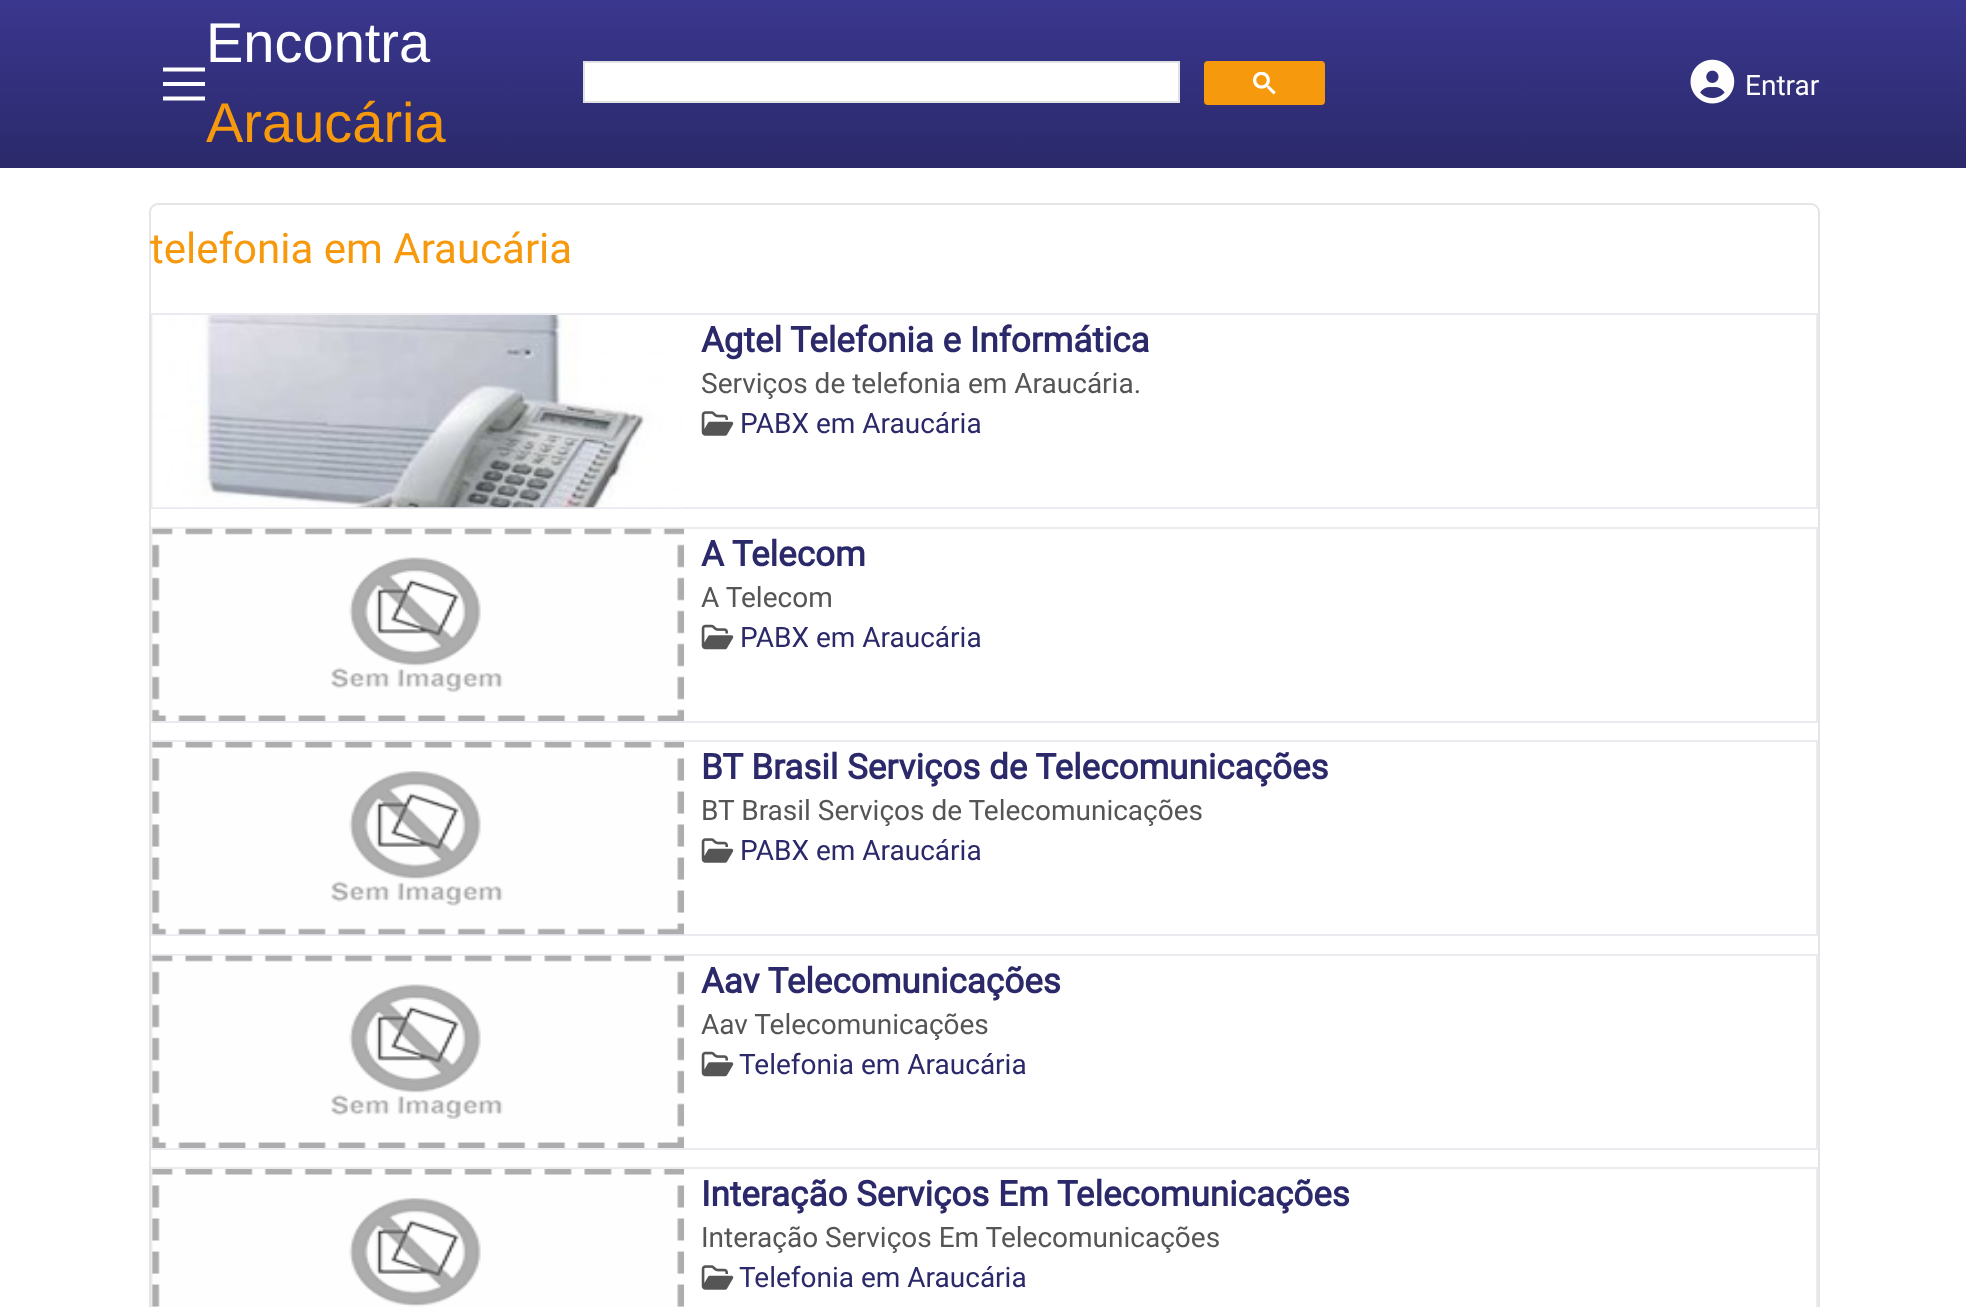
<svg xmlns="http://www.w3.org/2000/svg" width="1966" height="1307">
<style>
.a{font:56px Liberation Sans;fill:#fefefe}
.b{font:56px Liberation Sans;fill:#f6990d}
.c{font:28px Roboto;fill:#fefefe}
.d{font:42px Roboto;fill:#f6990d}
.e{font:bold 35px Roboto;fill:#2b296a}
.f{font:28px Roboto;fill:#555}
.g{font:28px Roboto;fill:#2b296a}
</style>
<defs>
<linearGradient id="g1" gradientUnits="userSpaceOnUse" x1="984" y1="0" x2="984" y2="168"><stop offset="0" stop-color="#3a378f"/><stop offset="1" stop-color="#2b296a"/></linearGradient>
</defs>
<rect width="100%" height="100%" fill="#fff"/>
<path fill="url(#g1)" d="M0 0h1966v168H0z"/>
<path fill="none" stroke="#fefefe" stroke-width="4.2" d="M163 69.5h42"/>
<path fill="#fefefe" d="M163 82h42v4H163z"/>
<path fill="none" stroke="#fefefe" stroke-width="4.2" d="M163 98.5h42"/>
<path fill="#fff" stroke="#dfe1e5" stroke-width="2" d="M584 62h595v40H584z"/>
<rect fill="#f6990d" stroke="#f6990d" stroke-width="2" x="1205" y="62" width="119" height="42" rx="3"/>
<image href="1.png" x="1253" y="72" width="23" height="23"/>
<image href="2.png" x="1690" y="59" width="45" height="45"/>
<rect fill="none" stroke="#e5e5e5" stroke-width="2" x="150" y="204" width="1669" height="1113" rx="8"/>
<path fill="none" stroke="#eaeaf0" stroke-width="2" d="M152 314h1665v194H152z"/>
<image href="3.png" x="152" y="315" width="532" height="193"/>
<image href="4.png" x="701" y="411" width="33" height="25"/>
<path fill="none" stroke="#eaeaf0" stroke-width="2" d="M152 528h1665v194H152z"/>
<image href="5.png" x="152" y="528" width="533" height="193"/>
<image href="6.png" x="701" y="624" width="33" height="26"/>
<path fill="none" stroke="#eaeaf0" stroke-width="2" d="M152 741h1665v194H152z"/>
<image href="7.png" x="152" y="742" width="533" height="193"/>
<image href="4.png" x="701" y="838" width="33" height="25"/>
<path fill="none" stroke="#eaeaf0" stroke-width="2" d="M152 955h1665v194H152z"/>
<image href="8.png" x="152" y="955" width="533" height="193"/>
<image href="6.png" x="701" y="1051" width="33" height="26"/>
<path fill="none" stroke="#eaeaf0" stroke-width="2" d="M152 1168h1665v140H152z"/>
<image href="9.png" x="152" y="1169" width="533" height="138"/>
<image href="4.png" x="701" y="1265" width="33" height="25"/>
<text class="a" x="206" y="62">Encontra</text>
<text class="b" x="206" y="142">Araucária</text>
<text class="c" x="1745" y="95">Entrar</text>
<text class="d" x="150" y="263">telefonia em Araucária</text>
<text class="e" x="701" y="352">Agtel Telefonia e Informática</text>
<text class="f" x="701" y="393">Serviços de telefonia em Araucária.</text>
<text class="g" x="740" y="433">PABX em Araucária</text>
<text class="e" x="701" y="566">A Telecom</text>
<text class="f" x="701" y="607">A Telecom</text>
<text class="g" x="740" y="647">PABX em Araucária</text>
<text class="e" x="701" y="779">BT Brasil Serviços de Telecomunicações</text>
<text class="f" x="701" y="820">BT Brasil Serviços de Telecomunicações</text>
<text class="g" x="740" y="860">PABX em Araucária</text>
<text class="e" x="701" y="993">Aav Telecomunicações</text>
<text class="f" x="701" y="1034">Aav Telecomunicações</text>
<text class="g" x="739" y="1074">Telefonia em Araucária</text>
<text class="e" x="701" y="1206">Interação Serviços Em Telecomunicações</text>
<text class="f" x="701" y="1247">Interação Serviços Em Telecomunicações</text>
<text class="g" x="739" y="1287">Telefonia em Araucária</text>
</svg>
